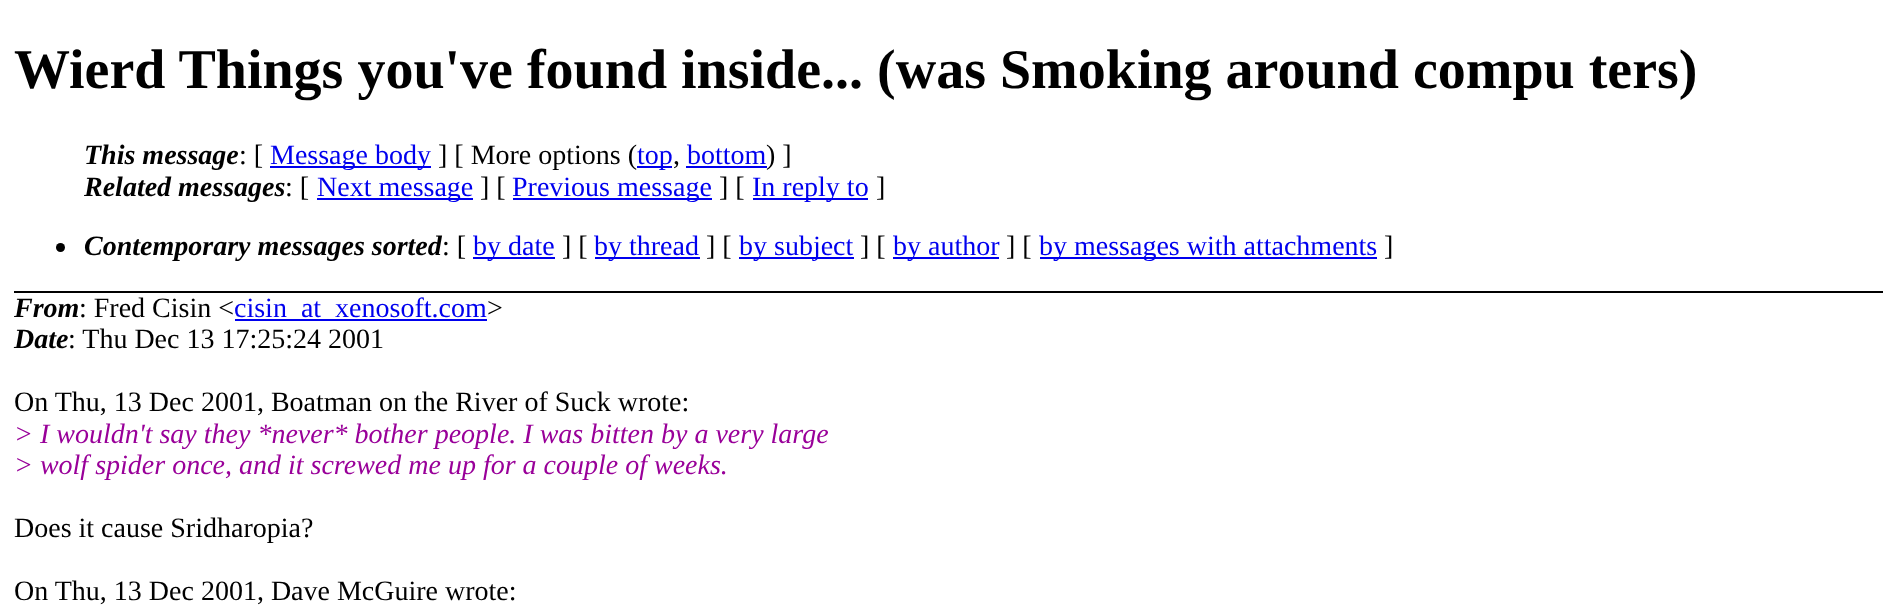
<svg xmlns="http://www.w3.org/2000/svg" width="1897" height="607">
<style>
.a{font:bold 56px Liberation Serif;fill:#000}
.b{font:italic bold 28px Liberation Serif;fill:#000}
.c{font:28px Liberation Serif;fill:#000}
.d{font:28px Liberation Serif;fill:#00e}
.e{font:italic 28px Liberation Serif;fill:#909}
</style>
<rect width="100%" height="100%" fill="#fff"/>
<path fill="#000" d="M14 291h1869v2H14z"/>
<path fill="#00e" d="M270 166h161v2H270z"/>
<path fill="#00e" d="M637 166h35v2H637z"/>
<path fill="#00e" d="M686 166h81v2H686z"/>
<path fill="#00e" d="M317 198h156v2H317z"/>
<path fill="#00e" d="M513 198h199v2H513z"/>
<path fill="#00e" d="M753 198h115v2H753z"/>
<circle fill="#000" cx="60.5" cy="247.5" r="4.5"/>
<path fill="#00e" d="M473 257h82v2H473z"/>
<path fill="#00e" d="M595 257h105v2H595z"/>
<path fill="#00e" d="M739 257h115v2H739z"/>
<path fill="#00e" d="M893 257h106v2H893z"/>
<path fill="#00e" d="M1040 257h337v2H1040z"/>
<path fill="#00e" d="M235 319h252v2H235z"/>
<text class="a" x="14" y="88">Wierd Things you've found inside... (was Smoking around compu ters)</text>
<text class="b" x="84" y="164">This message</text>
<text class="c" x="239" y="164">: [</text>
<text class="d" x="270" y="164">Message body</text>
<text class="c" x="438" y="164">] [ More options (</text>
<text class="d" x="637" y="164">top</text>
<text class="c" x="673" y="164">,</text>
<text class="d" x="687" y="164">bottom</text>
<text class="c" x="766" y="164">) ]</text>
<text class="b" x="84" y="196">Related messages</text>
<text class="c" x="285" y="196">: [</text>
<text class="d" x="317" y="196">Next message</text>
<text class="c" x="480" y="196">] [</text>
<text class="d" x="512" y="196">Previous message</text>
<text class="c" x="719" y="196">] [</text>
<text class="d" x="752" y="196">In reply to</text>
<text class="c" x="876" y="196">]</text>
<text class="b" x="84" y="255">Contemporary messages sorted</text>
<text class="c" x="442" y="255">: [</text>
<text class="d" x="473" y="255">by date</text>
<text class="c" x="562" y="255">] [</text>
<text class="d" x="594" y="255">by thread</text>
<text class="c" x="706" y="255">] [</text>
<text class="d" x="739" y="255">by subject</text>
<text class="c" x="860" y="255">] [</text>
<text class="d" x="893" y="255">by author</text>
<text class="c" x="1006" y="255">] [</text>
<text class="d" x="1039" y="255">by messages with attachments</text>
<text class="c" x="1384" y="255">]</text>
<text class="b" x="14" y="317">From</text>
<text class="c" x="79" y="317">: Fred Cisin &lt;</text>
<text class="d" x="234" y="317">cisin_at_xenosoft.com</text>
<text class="c" x="487" y="317">&gt;</text>
<text class="b" x="14" y="348">Date</text>
<text class="c" x="68" y="348">: Thu Dec 13 17:25:24 2001</text>
<text class="c" x="14" y="411">On Thu, 13 Dec 2001, Boatman on the River of Suck wrote:</text>
<text class="e" x="14" y="443">&gt; I wouldn't say they *never* bother people. I was bitten by a very large</text>
<text class="e" x="14" y="474">&gt; wolf spider once, and it screwed me up for a couple of weeks.</text>
<text class="c" x="14" y="537">Does it cause Sridharopia?</text>
<text class="c" x="14" y="600">On Thu, 13 Dec 2001, Dave McGuire wrote:</text>
</svg>
